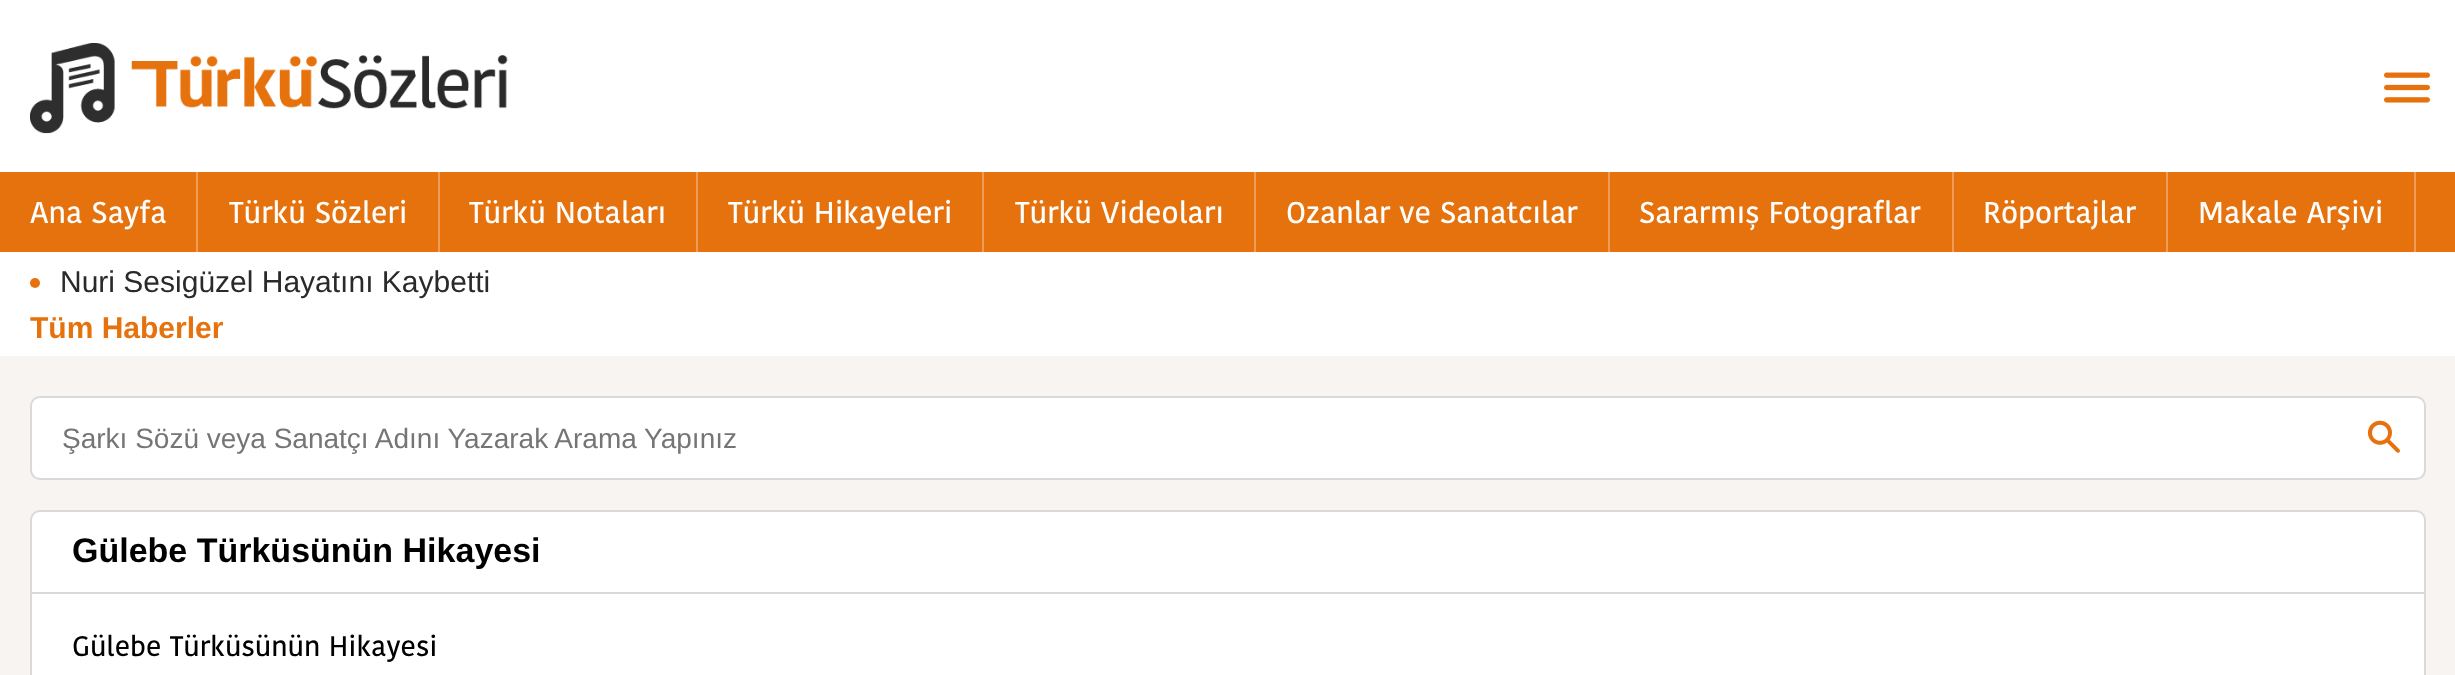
<svg xmlns="http://www.w3.org/2000/svg" width="2455" height="675">
<style>
.a{font:500 30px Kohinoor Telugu;fill:#fff}
.b{font:30px Liberation Sans;fill:#2a2a2a}
.c{font:bold 30px Liberation Sans;fill:#e6720e}
.d{font:28px Liberation Sans;fill:#757575}
.e{font:bold 34px Liberation Sans;fill:#000}
.f{font:500 28px Kohinoor Telugu;fill:#000}
</style>
<rect width="100%" height="100%" fill="#f7f4f1"/>
<path fill="#fff" d="M0 0h2455v172H0z"/>
<image href="1.png" x="30" y="43" width="478" height="91"/>
<image href="2.png" x="2384" y="72" width="46" height="31"/>
<path fill="#e6720e" d="M0 172h2455v80H0z"/>
<path fill="#ee9c56" d="M196 172h2v80H196z"/>
<path fill="#ee9c56" d="M438 172h2v80H438z"/>
<path fill="#ee9c56" d="M696 172h2v80H696z"/>
<path fill="#ee9c56" d="M982 172h2v80H982z"/>
<path fill="#ee9c56" d="M1254 172h2v80H1254z"/>
<path fill="#ee9c56" d="M1608 172h2v80H1608z"/>
<path fill="#ee9c56" d="M1952 172h2v80H1952z"/>
<path fill="#ee9c56" d="M2166 172h2v80H2166z"/>
<path fill="#ee9c56" d="M2414 172h2v80H2414z"/>
<path fill="#fff" d="M0 252h2455v104H0z"/>
<circle fill="#e6720e" cx="35" cy="283" r="5"/>
<rect fill="#fff" x="30" y="396" width="2396" height="84" rx="10"/>
<rect fill="none" stroke="#00000026" stroke-width="2" x="31" y="397" width="2394" height="82" rx="9"/>
<image href="3.png" x="2367" y="420" width="33" height="33"/>
<rect fill="#fff" x="30" y="510" width="2396" height="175" rx="10"/>
<rect fill="none" stroke="#00000026" stroke-width="2" x="31" y="511" width="2394" height="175" rx="9"/>
<path fill="#d9d9d9" d="M32 592h2392v2H32z"/>
<text class="a" x="30" y="223">Ana Sayfa</text>
<text class="a" x="229" y="223">Türkü Sözleri</text>
<text class="a" x="469" y="223">Türkü Notaları</text>
<text class="a" x="728" y="223">Türkü Hikayeleri</text>
<text class="a" x="1015" y="223">Türkü Videoları</text>
<text class="a" x="1286" y="223">Ozanlar ve Sanatcılar</text>
<text class="a" x="1639" y="223">Sararmış Fotograflar</text>
<text class="a" x="1983" y="223">Röportajlar</text>
<text class="a" x="2198" y="223">Makale Arşivi</text>
<text class="b" x="60" y="292">Nuri Sesigüzel Hayatını Kaybetti</text>
<text class="c" x="30" y="338">Tüm Haberler</text>
<text class="d" x="62" y="448">Şarkı Sözü veya Sanatçı Adını Yazarak Arama Yapınız</text>
<text class="e" x="72" y="562">Gülebe Türküsünün Hikayesi</text>
<text class="f" x="72" y="656">Gülebe Türküsünün Hikayesi</text>
</svg>
